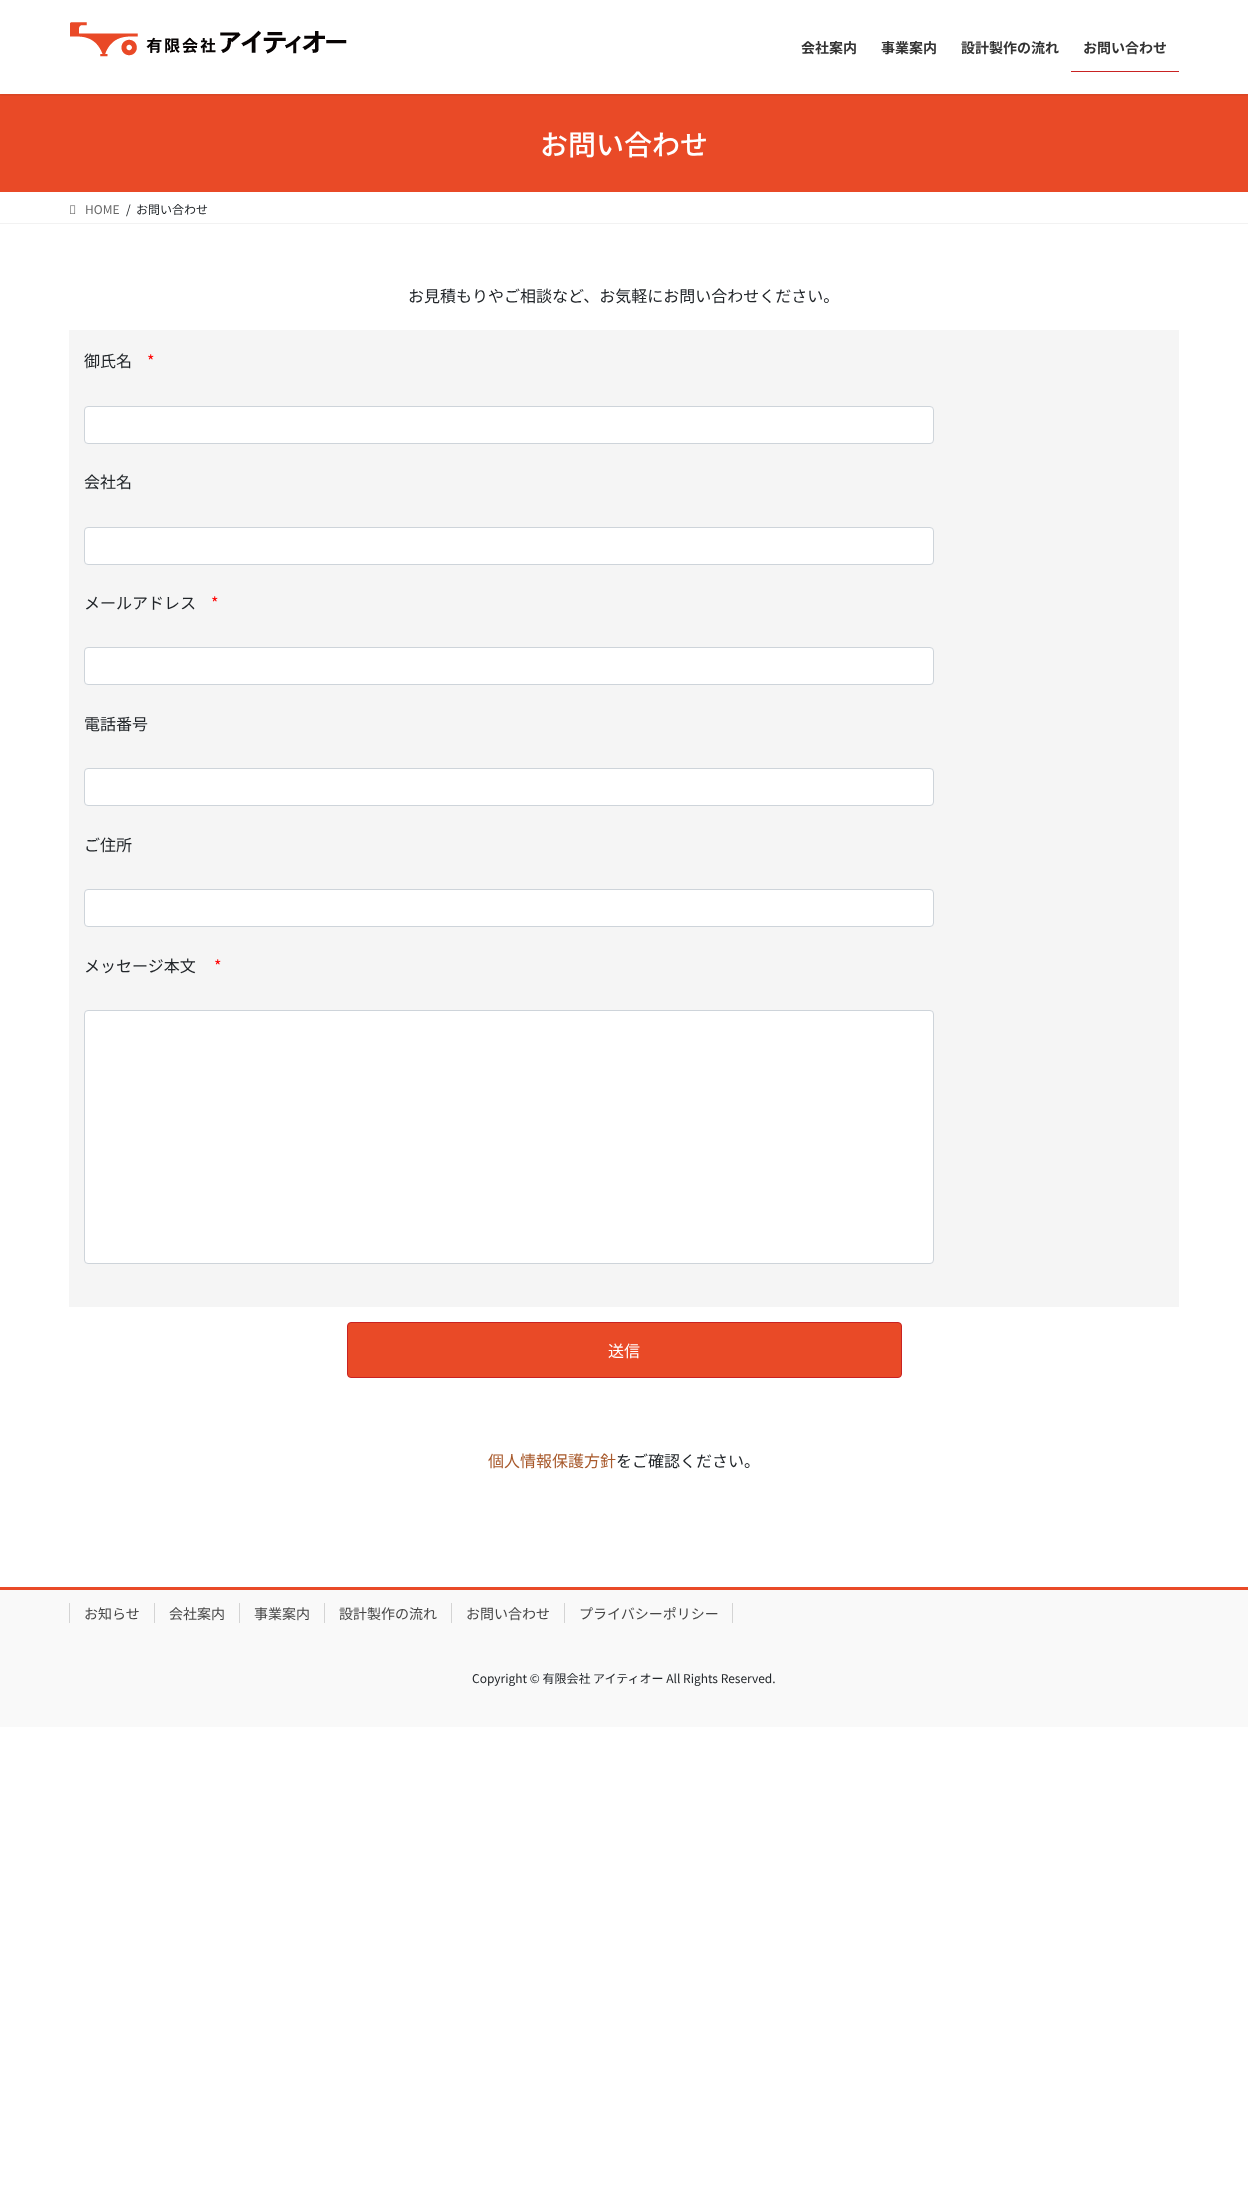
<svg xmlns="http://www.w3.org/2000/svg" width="1248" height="2205">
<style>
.a{font:bold 14px Noto Sans JP;fill:#333}
.b{font:500 28px Noto Sans JP;fill:#fff}
.c{font:12px Noto Sans JP;fill:#666}
.d{font:12px Noto Sans JP;fill:#212529}
.e{font:16px Noto Sans JP;fill:#212529}
.f{font:16px Noto Sans JP;fill:#f00}
.g{font:16px Noto Sans JP;fill:#fff}
.h{font:16px Noto Sans JP;fill:#a8592b}
.i{font:14px Noto Sans JP;fill:#464646}
</style>
<defs>
<clipPath id="clip1"><path d="M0 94h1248v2H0z"/></clipPath>
</defs>
<rect width="100%" height="100%" fill="#fff"/>
<path fill="#e94a27" d="M0 94h1248v98H0z"/>
<g clip-path="url(#clip1)">
<path fill="#0000001a" filter="blur(1.5px)" d="M0 1h1248v94H0z"/>
</g>
<image href="1.png" x="70" y="22" width="277" height="35"/>
<path fill="#c92222" d="M1071 71h108v1H1071z"/>
<path fill="#f2f2f2" d="M0 223h1248v1H0z"/>
<image href="2.png" x="70" y="205" width="6" height="9"/>
<path fill="#f5f5f5" d="M69 330h1110v977H69z"/>
<rect fill="#fff" stroke="#ced4da" x="84.5" y="406.5" width="849" height="37" rx="3.5"/>
<rect fill="#fff" stroke="#ced4da" x="84.5" y="527.5" width="849" height="37" rx="3.5"/>
<rect fill="#fff" stroke="#ced4da" x="84.5" y="647.5" width="849" height="37" rx="3.5"/>
<rect fill="#fff" stroke="#ced4da" x="84.5" y="768.5" width="849" height="37" rx="3.5"/>
<rect fill="#fff" stroke="#ced4da" x="84.5" y="889.5" width="849" height="37" rx="3.5"/>
<rect fill="#fff" stroke="#ced4da" x="84.5" y="1010.5" width="849" height="253" rx="3.5"/>
<rect fill="#e94a27" stroke="#c92222" x="347.5" y="1322.5" width="554" height="55" rx="3.5"/>
<path fill="#f9f9f9" d="M0 1590h1248v137H0z"/>
<path fill="#e94a27" d="M0 1587h1248v3H0z"/>
<path fill="#d4d4d4" d="M69 1603h1v20H69z"/>
<path fill="#d4d4d4" d="M154 1603h1v20H154z"/>
<path fill="#d4d4d4" d="M239 1603h1v20H239z"/>
<path fill="#d4d4d4" d="M324 1603h1v20H324z"/>
<path fill="#d4d4d4" d="M451 1603h1v20H451z"/>
<path fill="#d4d4d4" d="M732 1603h1v20H732z"/>
<path fill="#d4d4d4" d="M564 1603h1v20H564z"/>
<text class="a" x="801" y="53">会社案内</text>
<text class="a" x="881" y="53">事業案内</text>
<text class="a" x="961" y="53">設計製作の流れ</text>
<text class="a" x="1083" y="53">お問い合わせ</text>
<text class="b" x="540" y="155">お問い合わせ</text>
<text class="c" x="85" y="214">HOME</text>
<text class="d" x="126" y="214">/</text>
<text class="d" x="136" y="214">お問い合わせ</text>
<text class="e" x="408" y="302">お見積もりやご相談など、お気軽にお問い合わせください。</text>
<text class="e" x="84" y="367">御氏名</text>
<text class="f" x="147" y="367">*</text>
<text class="e" x="84" y="488">会社名</text>
<text class="e" x="84" y="609">メールアドレス</text>
<text class="f" x="211" y="609">*</text>
<text class="e" x="84" y="730">電話番号</text>
<text class="e" x="84" y="851">ご住所</text>
<text class="e" x="84" y="972">メッセージ本文</text>
<text class="f" x="214" y="972">*</text>
<text class="g" x="608" y="1357">送信</text>
<text class="h" x="488" y="1467">個人情報保護方針</text>
<text class="e" x="616" y="1467">をご確認ください。</text>
<text class="i" x="84" y="1619">お知らせ</text>
<text class="i" x="169" y="1619">会社案内</text>
<text class="i" x="254" y="1619">事業案内</text>
<text class="i" x="339" y="1619">設計製作の流れ</text>
<text class="i" x="466" y="1619">お問い合わせ</text>
<text class="i" x="579" y="1619">プライバシーポリシー</text>
<text class="d" x="472" y="1683">Copyright © 有限会社 アイティオー All Rights Reserved.</text>
</svg>
